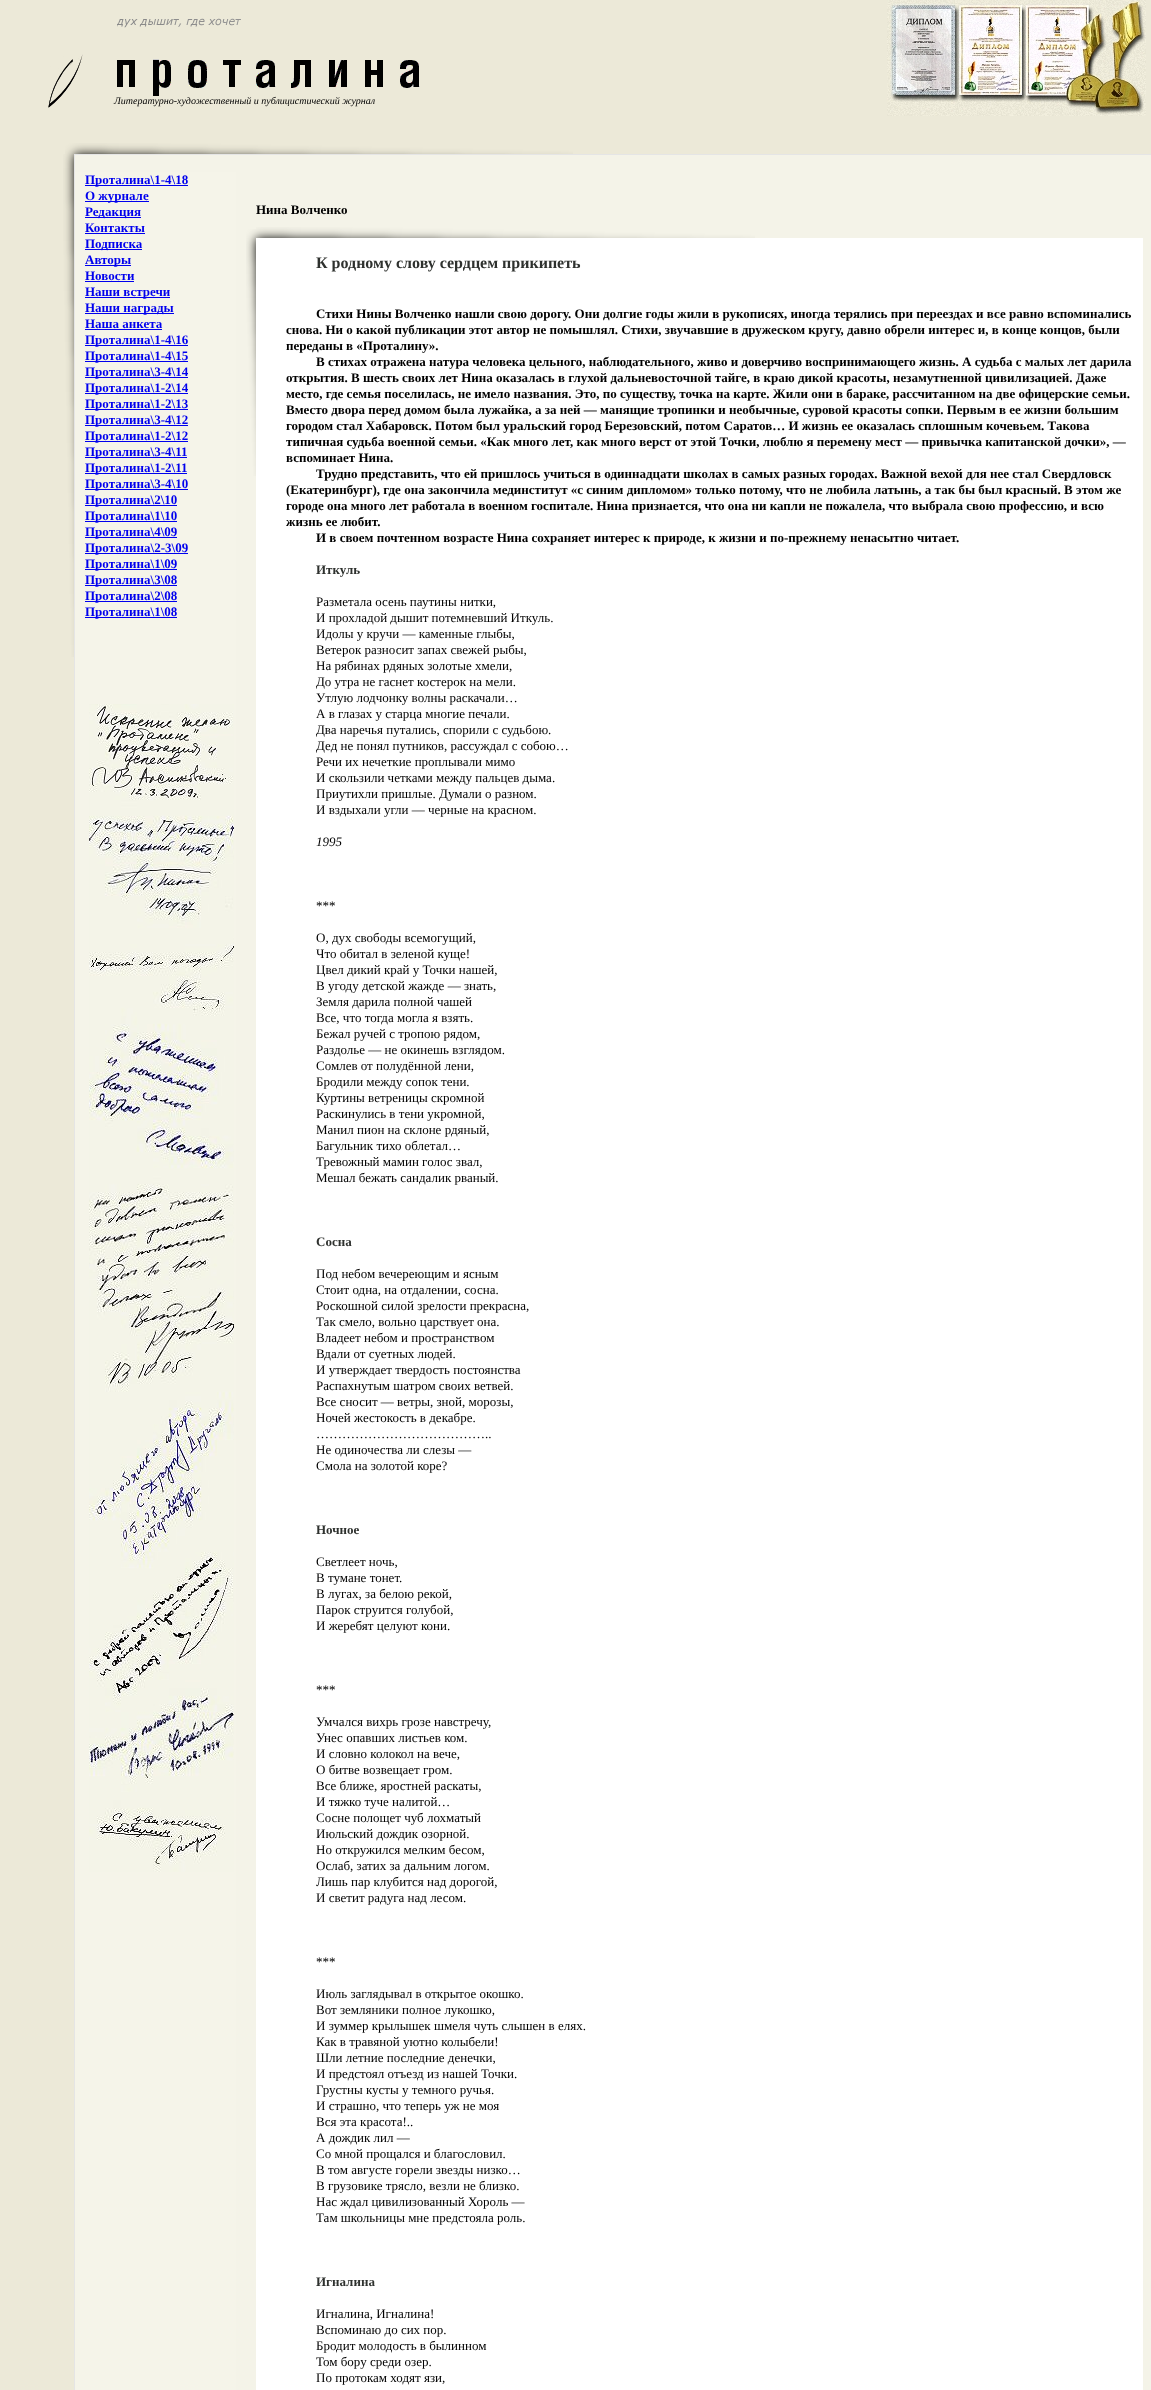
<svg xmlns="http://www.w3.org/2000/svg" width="1151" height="2390">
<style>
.a{font:italic 10px Liberation Serif;fill:#000}
.b{font:bold 13px Liberation Serif;fill:#00e}
.c{font:bold 13px Liberation Serif;fill:#000}
.d{font:bold 16px Liberation Serif;fill:#2e312e}
.e{font:bold 13px Liberation Serif;fill:#2e312e}
.f{font:13px Liberation Serif;fill:#000}
.g{font:italic 13px Liberation Serif;fill:#000}
</style>
<rect width="100%" height="100%" fill="#ece9d8"/>
<image href="1.png" x="117" y="18" width="124" height="10"/>
<image href="2.png" x="48" y="54" width="35" height="54"/>
<image href="3.png" x="117" y="59" width="303" height="37"/>
<image href="4.png" x="887" y="0" width="259" height="116"/>
<image href="5.png" x="65" y="143" width="508" height="11"/>
<image href="6.png" x="63" y="154" width="11" height="503"/>
<path fill="#e5e5e5" d="M74 154h1v2236H74z"/>
<path fill="#e5e5e5" d="M75 154h1076v1H75z"/>
<path fill="#f4f3e8" d="M75 155h1076v17H75z"/>
<path fill="#f5f4e9" d="M75 172h161v2218H75z"/>
<path fill="#00e" d="M85 185h103v1H85z"/>
<path fill="#00e" d="M85 201h64v1H85z"/>
<path fill="#00e" d="M85 217h56v1H85z"/>
<path fill="#00e" d="M85 233h60v1H85z"/>
<path fill="#00e" d="M85 249h57v1H85z"/>
<path fill="#00e" d="M85 265h46v1H85z"/>
<path fill="#00e" d="M85 281h49v1H85z"/>
<path fill="#00e" d="M85 297h85v1H85z"/>
<path fill="#00e" d="M85 313h89v1H85z"/>
<path fill="#00e" d="M85 329h77v1H85z"/>
<path fill="#00e" d="M85 345h103v1H85z"/>
<path fill="#00e" d="M85 361h103v1H85z"/>
<path fill="#00e" d="M85 377h103v1H85z"/>
<path fill="#00e" d="M85 393h103v1H85z"/>
<path fill="#00e" d="M85 409h103v1H85z"/>
<path fill="#00e" d="M85 425h103v1H85z"/>
<path fill="#00e" d="M85 441h103v1H85z"/>
<path fill="#00e" d="M85 457h102v1H85z"/>
<path fill="#00e" d="M85 473h102v1H85z"/>
<path fill="#00e" d="M85 489h103v1H85z"/>
<path fill="#00e" d="M85 505h92v1H85z"/>
<path fill="#00e" d="M85 521h92v1H85z"/>
<path fill="#00e" d="M85 537h92v1H85z"/>
<path fill="#00e" d="M85 553h103v1H85z"/>
<path fill="#00e" d="M85 569h92v1H85z"/>
<path fill="#00e" d="M85 585h92v1H85z"/>
<path fill="#00e" d="M85 601h92v1H85z"/>
<path fill="#00e" d="M85 617h92v1H85z"/>
<image href="7.png" x="89" y="704" width="145" height="1168"/>
<path fill="#f4f3e8" d="M236 172h915v2218H236z"/>
<image href="8.png" x="246" y="229" width="10" height="247"/>
<image href="9.png" x="256" y="227" width="499" height="11"/>
<path fill="#fff" d="M256 238h887v2152H256z"/>
<text class="a" x="114" y="104">Литературно-художественный и публицистический журнал</text>
<text class="b" x="85" y="184">Проталина\1-4\18</text>
<text class="b" x="85" y="200">О журнале</text>
<text class="b" x="85" y="216">Редакция</text>
<text class="b" x="85" y="232">Контакты</text>
<text class="b" x="85" y="248">Подписка</text>
<text class="b" x="85" y="264">Авторы</text>
<text class="b" x="85" y="280">Новости</text>
<text class="b" x="85" y="296">Наши встречи</text>
<text class="b" x="85" y="312">Наши награды</text>
<text class="b" x="85" y="328">Наша анкета</text>
<text class="b" x="85" y="344">Проталина\1-4\16</text>
<text class="b" x="85" y="360">Проталина\1-4\15</text>
<text class="b" x="85" y="376">Проталина\3-4\14</text>
<text class="b" x="85" y="392">Проталина\1-2\14</text>
<text class="b" x="85" y="408">Проталина\1-2\13</text>
<text class="b" x="85" y="424">Проталина\3-4\12</text>
<text class="b" x="85" y="440">Проталина\1-2\12</text>
<text class="b" x="85" y="456">Проталина\3-4\11</text>
<text class="b" x="85" y="472">Проталина\1-2\11</text>
<text class="b" x="85" y="488">Проталина\3-4\10</text>
<text class="b" x="85" y="504">Проталина\2\10</text>
<text class="b" x="85" y="520">Проталина\1\10</text>
<text class="b" x="85" y="536">Проталина\4\09</text>
<text class="b" x="85" y="552">Проталина\2-3\09</text>
<text class="b" x="85" y="568">Проталина\1\09</text>
<text class="b" x="85" y="584">Проталина\3\08</text>
<text class="b" x="85" y="600">Проталина\2\08</text>
<text class="b" x="85" y="616">Проталина\1\08</text>
<text class="c" x="256" y="214">Нина Волченко</text>
<text class="d" x="316" y="268">К родному слову сердцем прикипеть</text>
<text class="c" x="316" y="318">Стихи Нины Волченко нашли свою дорогу. Они долгие годы жили в рукописях, иногда терялись при переездах и все равно вспоминались</text>
<text class="c" x="286" y="334">снова. Ни о какой публикации этот автор не помышлял. Стихи, звучавшие в дружеском кругу, давно обрели интерес и, в конце концов, были</text>
<text class="c" x="286" y="350">переданы в «Проталину».</text>
<text class="c" x="316" y="366">В стихах отражена натура человека цельного, наблюдательного, живо и доверчиво воспринимающего жизнь. А судьба с малых лет дарила</text>
<text class="c" x="286" y="382">открытия. В шесть своих лет Нина оказалась в глухой дальневосточной тайге, в краю дикой красоты, незамутненной цивилизацией. Даже</text>
<text class="c" x="286" y="398">место, где семья поселилась, не имело названия. Это, по существу, точка на карте. Жили они в бараке, рассчитанном на две офицерские семьи.</text>
<text class="c" x="286" y="414">Вместо двора перед домом была лужайка, а за ней — манящие тропинки и необычные, суровой красоты сопки. Первым в ее жизни большим</text>
<text class="c" x="286" y="430">городом стал Хабаровск. Потом был уральский город Березовский, потом Саратов… И жизнь ее оказалась сплошным кочевьем. Такова</text>
<text class="c" x="286" y="446">типичная судьба военной семьи. «Как много лет, как много верст от этой Точки, люблю я перемену мест — привычка капитанской дочки», —</text>
<text class="c" x="286" y="462">вспоминает Нина.</text>
<text class="c" x="316" y="478">Трудно представить, что ей пришлось учиться в одиннадцати школах в самых разных городах. Важной вехой для нее стал Свердловск</text>
<text class="c" x="286" y="494">(Екатеринбург), где она закончила мединститут «с синим дипломом» только потому, что не любила латынь, а так бы был красный. В этом же</text>
<text class="c" x="286" y="510">городе она много лет работала в военном госпитале. Нина признается, что она ни капли не пожалела, что выбрала свою профессию, и всю</text>
<text class="c" x="286" y="526">жизнь ее любит.</text>
<text class="c" x="316" y="542">И в своем почтенном возрасте Нина сохраняет интерес к природе, к жизни и по-прежнему ненасытно читает.</text>
<text class="e" x="316" y="574">Иткуль</text>
<text class="f" x="316" y="606">Разметала осень паутины нитки,</text>
<text class="f" x="316" y="622">И прохладой дышит потемневший Иткуль.</text>
<text class="f" x="316" y="638">Идолы у кручи — каменные глыбы,</text>
<text class="f" x="316" y="654">Ветерок разносит запах свежей рыбы,</text>
<text class="f" x="316" y="670">На рябинах рдяных золотые хмели,</text>
<text class="f" x="316" y="686">До утра не гаснет костерок на мели.</text>
<text class="f" x="316" y="702">Утлую лодчонку волны раскачали…</text>
<text class="f" x="316" y="718">А в глазах у старца многие печали.</text>
<text class="f" x="316" y="734">Два наречья путались, спорили с судьбою.</text>
<text class="f" x="316" y="750">Дед не понял путников, рассуждал с собою…</text>
<text class="f" x="316" y="766">Речи их нечеткие проплывали мимо</text>
<text class="f" x="316" y="782">И скользили четками между пальцев дыма.</text>
<text class="f" x="316" y="798">Приутихли пришлые. Думали о разном.</text>
<text class="f" x="316" y="814">И вздыхали угли — черные на красном.</text>
<text class="g" x="316" y="846">1995</text>
<text class="f" x="316" y="910">***</text>
<text class="f" x="316" y="942">О, дух свободы всемогущий,</text>
<text class="f" x="316" y="958">Что обитал в зеленой куще!</text>
<text class="f" x="316" y="974">Цвел дикий край у Точки нашей,</text>
<text class="f" x="316" y="990">В угоду детской жажде — знать,</text>
<text class="f" x="316" y="1006">Земля дарила полной чашей</text>
<text class="f" x="316" y="1022">Все, что тогда могла я взять.</text>
<text class="f" x="316" y="1038">Бежал ручей с тропою рядом,</text>
<text class="f" x="316" y="1054">Раздолье — не окинешь взглядом.</text>
<text class="f" x="316" y="1070">Сомлев от полудённой лени,</text>
<text class="f" x="316" y="1086">Бродили между сопок тени.</text>
<text class="f" x="316" y="1102">Куртины ветреницы скромной</text>
<text class="f" x="316" y="1118">Раскинулись в тени укромной,</text>
<text class="f" x="316" y="1134">Манил пион на склоне рдяный,</text>
<text class="f" x="316" y="1150">Багульник тихо облетал…</text>
<text class="f" x="316" y="1166">Тревожный мамин голос звал,</text>
<text class="f" x="316" y="1182">Мешал бежать сандалик рваный.</text>
<text class="e" x="316" y="1246">Сосна</text>
<text class="f" x="316" y="1278">Под небом вечереющим и ясным</text>
<text class="f" x="316" y="1294">Стоит одна, на отдалении, сосна.</text>
<text class="f" x="316" y="1310">Роскошной силой зрелости прекрасна,</text>
<text class="f" x="316" y="1326">Так смело, вольно царствует она.</text>
<text class="f" x="316" y="1342">Владеет небом и пространством</text>
<text class="f" x="316" y="1358">Вдали от суетных людей.</text>
<text class="f" x="316" y="1374">И утверждает твердость постоянства</text>
<text class="f" x="316" y="1390">Распахнутым шатром своих ветвей.</text>
<text class="f" x="316" y="1406">Все сносит — ветры, зной, морозы,</text>
<text class="f" x="316" y="1422">Ночей жестокость в декабре.</text>
<text class="f" x="316" y="1438">…………………………………..</text>
<text class="f" x="316" y="1454">Не одиночества ли слезы —</text>
<text class="f" x="316" y="1470">Смола на золотой коре?</text>
<text class="e" x="316" y="1534">Ночное</text>
<text class="f" x="316" y="1566">Светлеет ночь,</text>
<text class="f" x="316" y="1582">В тумане тонет.</text>
<text class="f" x="316" y="1598">В лугах, за белою рекой,</text>
<text class="f" x="316" y="1614">Парок струится голубой,</text>
<text class="f" x="316" y="1630">И жеребят целуют кони.</text>
<text class="f" x="316" y="1694">***</text>
<text class="f" x="316" y="1726">Умчался вихрь грозе навстречу,</text>
<text class="f" x="316" y="1742">Унес опавших листьев ком.</text>
<text class="f" x="316" y="1758">И словно колокол на вече,</text>
<text class="f" x="316" y="1774">О битве возвещает гром.</text>
<text class="f" x="316" y="1790">Все ближе, яростней раскаты,</text>
<text class="f" x="316" y="1806">И тяжко туче налитой…</text>
<text class="f" x="316" y="1822">Сосне полощет чуб лохматый</text>
<text class="f" x="316" y="1838">Июльский дождик озорной.</text>
<text class="f" x="316" y="1854">Но откружился мелким бесом,</text>
<text class="f" x="316" y="1870">Ослаб, затих за дальним логом.</text>
<text class="f" x="316" y="1886">Лишь пар клубится над дорогой,</text>
<text class="f" x="316" y="1902">И светит радуга над лесом.</text>
<text class="f" x="316" y="1966">***</text>
<text class="f" x="316" y="1998">Июль заглядывал в открытое окошко.</text>
<text class="f" x="316" y="2014">Вот земляники полное лукошко,</text>
<text class="f" x="316" y="2030">И зуммер крылышек шмеля чуть слышен в елях.</text>
<text class="f" x="316" y="2046">Как в травяной уютно колыбели!</text>
<text class="f" x="316" y="2062">Шли летние последние денечки,</text>
<text class="f" x="316" y="2078">И предстоял отъезд из нашей Точки.</text>
<text class="f" x="316" y="2094">Грустны кусты у темного ручья.</text>
<text class="f" x="316" y="2110">И страшно, что теперь уж не моя</text>
<text class="f" x="316" y="2126">Вся эта красота!..</text>
<text class="f" x="316" y="2142">А дождик лил —</text>
<text class="f" x="316" y="2158">Со мной прощался и благословил.</text>
<text class="f" x="316" y="2174">В том августе горели звезды низко…</text>
<text class="f" x="316" y="2190">В грузовике трясло, везли не близко.</text>
<text class="f" x="316" y="2206">Нас ждал цивилизованный Хороль —</text>
<text class="f" x="316" y="2222">Там школьницы мне предстояла роль.</text>
<text class="e" x="316" y="2286">Игналина</text>
<text class="f" x="316" y="2318">Игналина, Игналина!</text>
<text class="f" x="316" y="2334">Вспоминаю до сих пор.</text>
<text class="f" x="316" y="2350">Бродит молодость в былинном</text>
<text class="f" x="316" y="2366">Том бору среди озер.</text>
<text class="f" x="316" y="2382">По протокам ходят язи,</text>
</svg>
